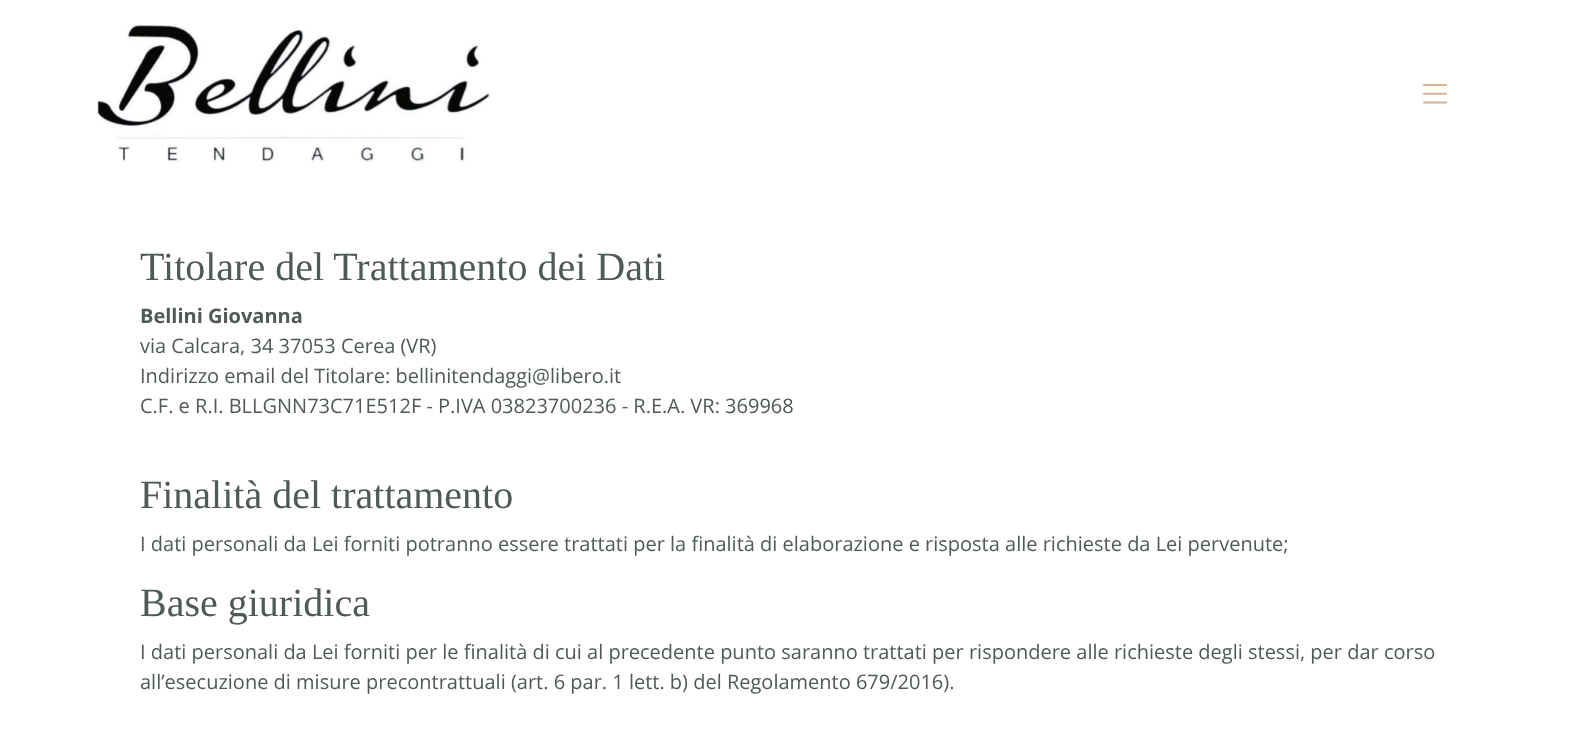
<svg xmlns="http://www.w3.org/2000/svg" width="1584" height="736">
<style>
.a{font:40px Liberation Serif;fill:#4f5959}
.b{font:bold 20px Open Sans;fill:#4f5959}
.c{font:20px Open Sans;fill:#4f5959}
</style>
<rect width="100%" height="100%" fill="#fff"/>
<image href="1.png" x="97" y="25" width="393" height="137"/>
<image href="2.png" x="1423" y="83" width="24" height="21"/>
<text class="a" x="140" y="280">Titolare del Trattamento dei Dati</text>
<text class="b" x="140" y="323">Bellini Giovanna</text>
<text class="c" x="140" y="353">via Calcara, 34 37053 Cerea (VR)</text>
<text class="c" x="140" y="383">Indirizzo email del Titolare: bellinitendaggi@libero.it</text>
<text class="c" x="140" y="413">C.F. e R.I. BLLGNN73C71E512F - P.IVA 03823700236 - R.E.A. VR: 369968</text>
<text class="a" x="140" y="508">Finalità del trattamento</text>
<text class="c" x="140" y="551">I dati personali da Lei forniti potranno essere trattati per la finalità di elaborazione e risposta alle richieste da Lei pervenute;</text>
<text class="a" x="140" y="616">Base giuridica</text>
<text class="c" x="140" y="659">I dati personali da Lei forniti per le finalità di cui al precedente punto saranno trattati per rispondere alle richieste degli stessi, per dar corso</text>
<text class="c" x="140" y="689">all’esecuzione di misure precontrattuali (art. 6 par. 1 lett. b) del Regolamento 679/2016).</text>
</svg>
